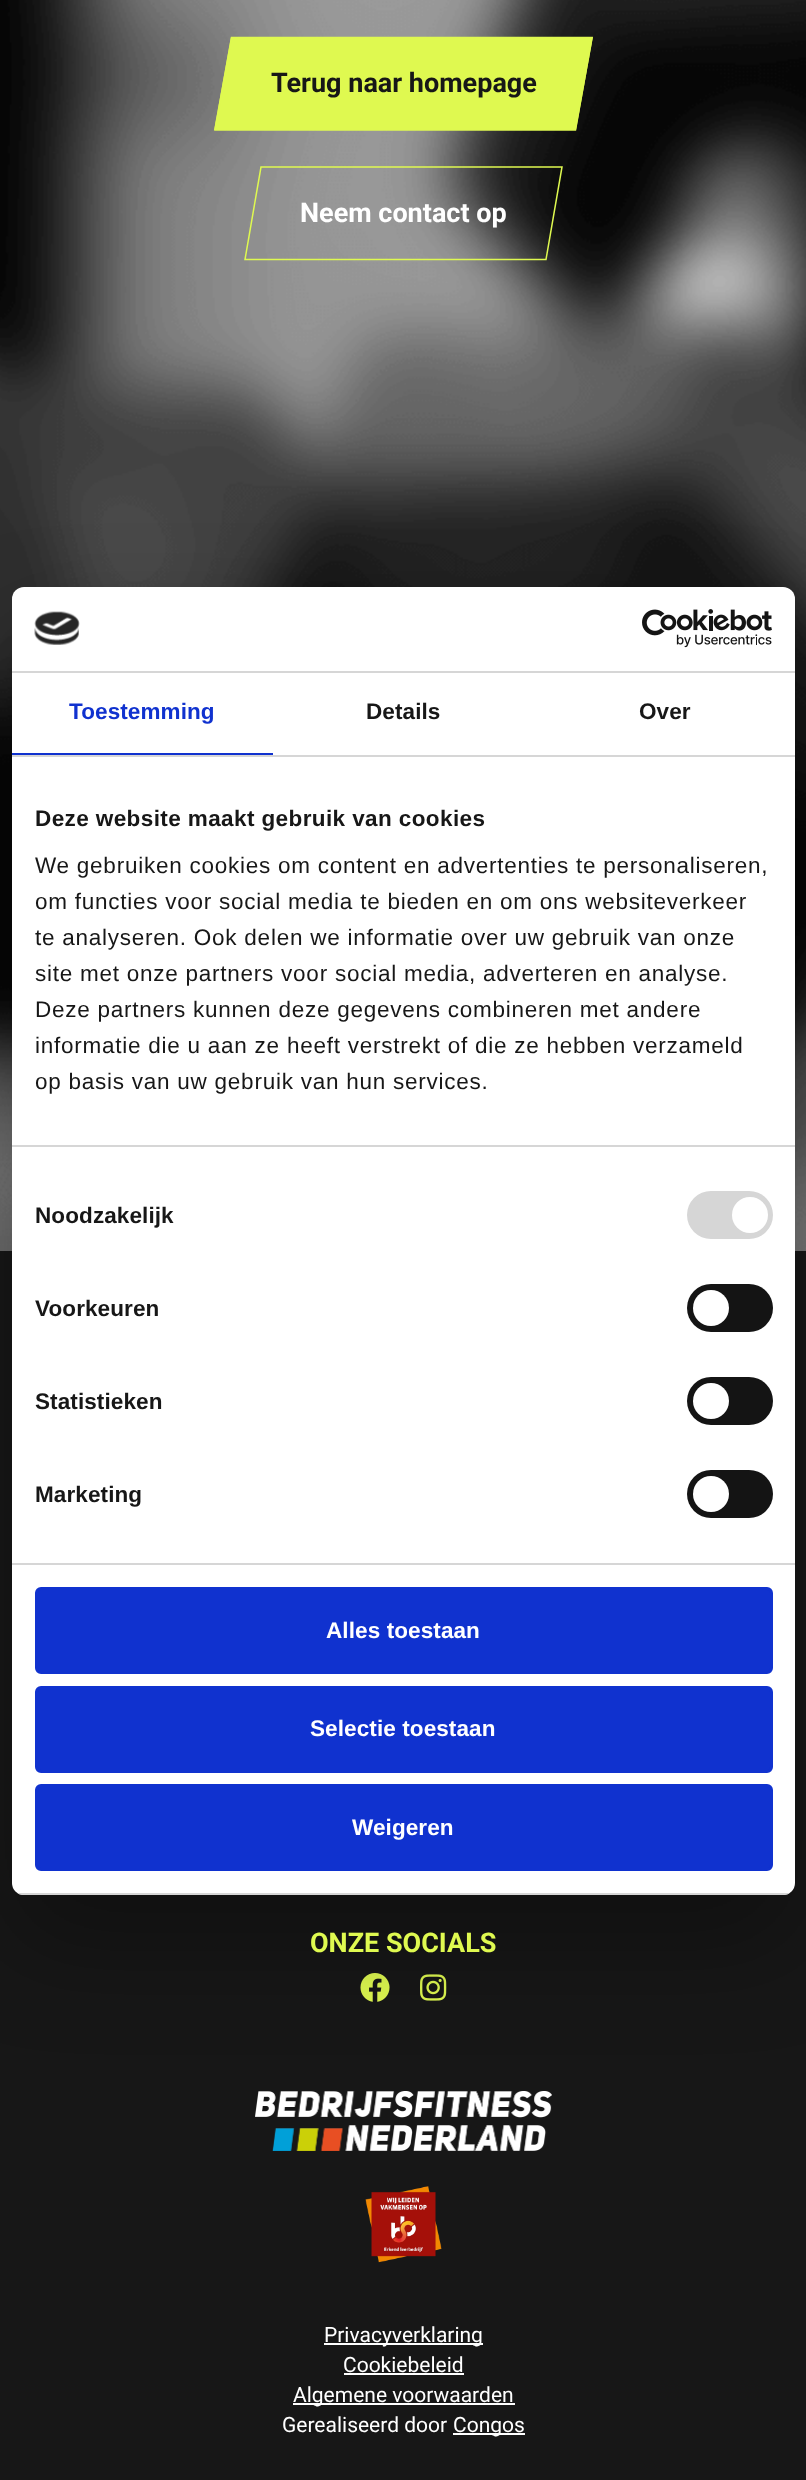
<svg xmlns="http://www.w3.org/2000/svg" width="806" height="2480">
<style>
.a{font:bold 27px Roboto;fill:#171717}
.b{font:bold 27px Roboto;fill:#fff}
.c{font:bold 22.5px Liberation Sans;letter-spacing:0.1px;fill:#1032cf}
.d{font:bold 22.5px Liberation Sans;letter-spacing:0.1px;fill:#171717}
.e{font:bold 22.5px Liberation Sans;letter-spacing:0.4px;fill:#171717}
.f{font:22.5px Liberation Sans;letter-spacing:0.75px;fill:#171717}
.g{font:bold 22.5px Liberation Sans;letter-spacing:0.1px;fill:#fff}
.h{font:bold 27px Roboto;fill:#dff950}
.i{font:21px Roboto;fill:#fff}
</style>
<defs>
<clipPath id="clip1"><rect x="12" y="587" width="783" height="1308" rx="12"/></clipPath>
</defs>
<rect width="100%" height="100%" fill="#171717"/>
<image href="1.png" x="0" y="0" width="806" height="1251"/>
<path fill="#dff950" d="M231 37h362l-17 93h-362z"/>
<path fill="none" stroke="#dff950" stroke-width="1.5" d="M231.5 37.5h360.5l-16.5 92.5h-360.5z"/>
<path fill="none" stroke="#dff950" stroke-width="1.5" d="M261 167h301l-16 92.5h-301z"/>
<image href="4.png" x="360" y="1973" width="30" height="29"/>
<image href="5.png" x="420" y="1974" width="27" height="27"/>
<image href="6.png" x="255" y="2091" width="297" height="60"/>
<rect fill="#0000004d" filter="blur(51px)" x="12" y="635" width="783" height="1308" rx="12"/>
<rect fill="#fff" x="12" y="587" width="783" height="1308" rx="12"/>
<path fill="#d6d6d6" d="M12 671h783v2H12z"/>
<image href="2.png" x="34" y="611" width="46" height="34"/>
<image href="3.png" x="642" y="609" width="130" height="39"/>
<path fill="#d6d6d6" d="M12 755h783v2H12z"/>
<path fill="#1032cf" d="M12 753h261v2H12z"/>
<path fill="#d6d6d6" d="M12 1145h783v2H12z"/>
<path fill="#d6d6d6" d="M12 1563h783v2H12z"/>
<rect fill="#d6d6d6" x="687" y="1191" width="86" height="48" rx="24"/>
<circle fill="#fff" cx="750" cy="1215" r="18"/>
<rect fill="#141414" x="687" y="1284" width="86" height="48" rx="24"/>
<circle fill="#fff" cx="711" cy="1308" r="18"/>
<rect fill="#141414" x="687" y="1377" width="86" height="48" rx="24"/>
<circle fill="#fff" cx="711" cy="1401" r="18"/>
<rect fill="#141414" x="687" y="1470" width="86" height="48" rx="24"/>
<circle fill="#fff" cx="711" cy="1494" r="18"/>
<g clip-path="url(#clip1)">
<path fill="#d6d6d6" d="M12 1893h783v2H12z"/>
</g>
<rect fill="#1032cf" stroke="#1032cf" stroke-width="3" x="36.5" y="1588.5" width="735" height="84" rx="4.5"/>
<rect fill="#1032cf" stroke="#1032cf" stroke-width="3" x="36.5" y="1687.5" width="735" height="84" rx="4.5"/>
<rect fill="#1032cf" stroke="#1032cf" stroke-width="3" x="36.5" y="1785.5" width="735" height="84" rx="4.5"/>
<image href="7.png" x="365" y="2186" width="77" height="77"/>
<path fill="#fff" d="M324 2343h159v2H324z"/>
<path fill="#fff" d="M344 2373h120v2H344z"/>
<path fill="#fff" d="M293 2403h222v2H293z"/>
<path fill="#fff" d="M453 2433h72v2H453z"/>
<text class="a" x="271" y="92">Terug naar homepage</text>
<text class="b" x="300" y="222">Neem contact op</text>
<text class="c" x="69" y="719">Toestemming</text>
<text class="d" x="366" y="719">Details</text>
<text class="d" x="639" y="719">Over</text>
<text class="e" x="35" y="826">Deze website maakt gebruik van cookies</text>
<text class="f" x="35" y="873">We gebruiken cookies om content en advertenties te personaliseren,</text>
<text class="f" x="35" y="909">om functies voor social media te bieden en om ons websiteverkeer</text>
<text class="f" x="35" y="945">te analyseren. Ook delen we informatie over uw gebruik van onze</text>
<text class="f" x="35" y="981">site met onze partners voor social media, adverteren en analyse.</text>
<text class="f" x="35" y="1017">Deze partners kunnen deze gegevens combineren met andere</text>
<text class="f" x="35" y="1053">informatie die u aan ze heeft verstrekt of die ze hebben verzameld</text>
<text class="f" x="35" y="1089">op basis van uw gebruik van hun services.</text>
<text class="d" x="35" y="1223">Noodzakelijk</text>
<text class="d" x="35" y="1316">Voorkeuren</text>
<text class="d" x="35" y="1409">Statistieken</text>
<text class="d" x="35" y="1502">Marketing</text>
<text class="g" x="326" y="1638">Alles toestaan</text>
<text class="g" x="310" y="1736">Selectie toestaan</text>
<text class="g" x="352" y="1835">Weigeren</text>
<text class="h" x="310" y="1952">ONZE SOCIALS</text>
<text class="i" x="324" y="2342">Privacyverklaring</text>
<text class="i" x="343" y="2372">Cookiebeleid</text>
<text class="i" x="293" y="2402">Algemene voorwaarden</text>
<text class="i" x="282" y="2432">Gerealiseerd door</text>
<text class="i" x="453" y="2432">Congos</text>
</svg>
